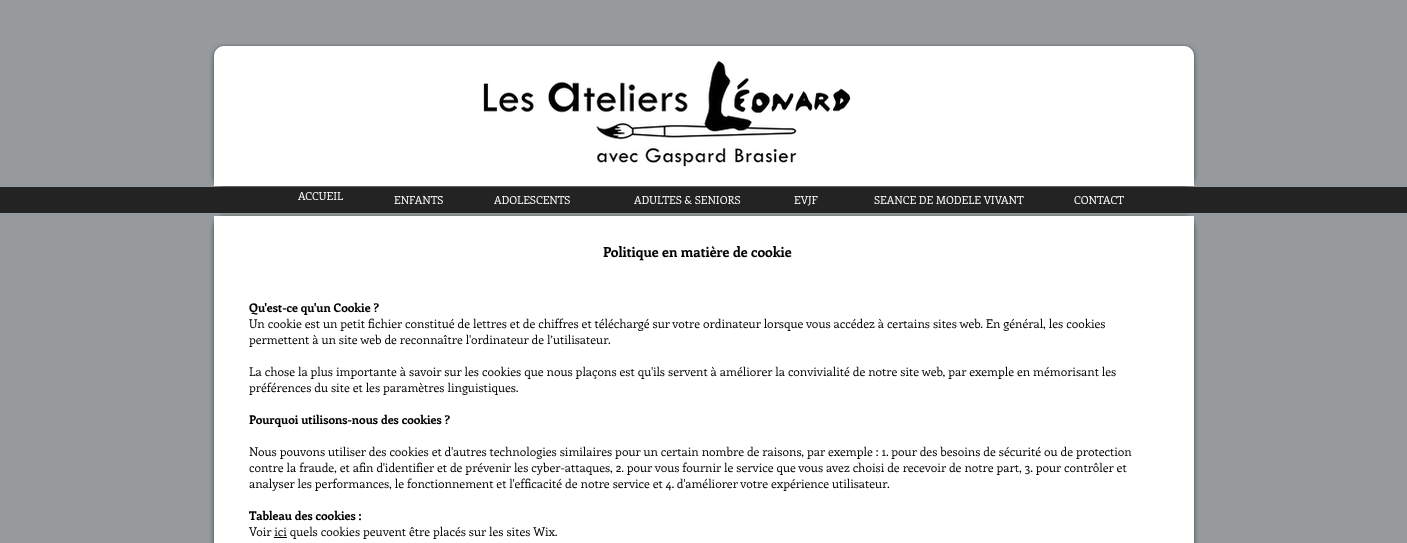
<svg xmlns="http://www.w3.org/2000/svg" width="1407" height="543">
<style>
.a{font:11px Enriqueta;fill:#fff}
.b{font:bold 14px Enriqueta;fill:#000}
.c{font:bold 12px Enriqueta;fill:#000}
.d{font:12px Enriqueta;fill:#000}
</style>
<rect width="100%" height="100%" fill="#969a9c"/>
<rect fill="#00000099" filter="blur(2px)" x="214" y="47" width="980" height="140" rx="10"/>
<path fill="#fff" d="M224 46h960c5.5 0 10 4.5 10 10v130h-980v-130c0-5.5 4.5-10 10-10z"/>
<image href="1.png" x="483" y="60" width="368" height="107"/>
<path fill="#242323" d="M0 187h1407v26H0z"/>
<rect fill="#00000099" filter="blur(2px)" x="214" y="217" width="980" height="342" rx="10"/>
<path fill="#fff" d="M214 216h980v327H214z"/>
<path fill="#000" d="M274 537h13v1H274z"/>
<text class="a" x="298" y="200">ACCUEIL</text>
<text class="a" x="394" y="204">ENFANTS</text>
<text class="a" x="494" y="204">ADOLESCENTS</text>
<text class="a" x="634" y="204">ADULTES &amp; SENIORS</text>
<text class="a" x="794" y="204">EVJF</text>
<text class="a" x="874" y="204">SEANCE DE MODELE VIVANT</text>
<text class="a" x="1074" y="204">CONTACT</text>
<text class="b" x="603" y="257">Politique en matière de cookie</text>
<text class="c" x="249" y="312">Qu'est-ce qu'un Cookie ?</text>
<text class="d" x="249" y="328">Un cookie est un petit fichier constitué de lettres et de chiffres et téléchargé sur votre ordinateur lorsque vous accédez à certains sites web. En général, les cookies</text>
<text class="d" x="249" y="344">permettent à un site web de reconnaître l'ordinateur de l’utilisateur.</text>
<text class="d" x="249" y="376">La chose la plus importante à savoir sur les cookies que nous plaçons est qu'ils servent à améliorer la convivialité de notre site web, par exemple en mémorisant les</text>
<text class="d" x="249" y="392">préférences du site et les paramètres linguistiques.</text>
<text class="c" x="249" y="424">Pourquoi utilisons-nous des cookies ?</text>
<text class="d" x="249" y="456">Nous pouvons utiliser des cookies et d'autres technologies similaires pour un certain nombre de raisons, par exemple : 1. pour des besoins de sécurité ou de protection</text>
<text class="d" x="249" y="472">contre la fraude, et afin d'identifier et de prévenir les cyber-attaques, 2. pour vous fournir le service que vous avez choisi de recevoir de notre part, 3. pour contrôler et</text>
<text class="d" x="249" y="488">analyser les performances, le fonctionnement et l'efficacité de notre service et 4. d'améliorer votre expérience utilisateur.</text>
<text class="c" x="249" y="520">Tableau des cookies :</text>
<text class="d" x="249" y="536">Voir ici quels cookies peuvent être placés sur les sites Wix.</text>
</svg>
